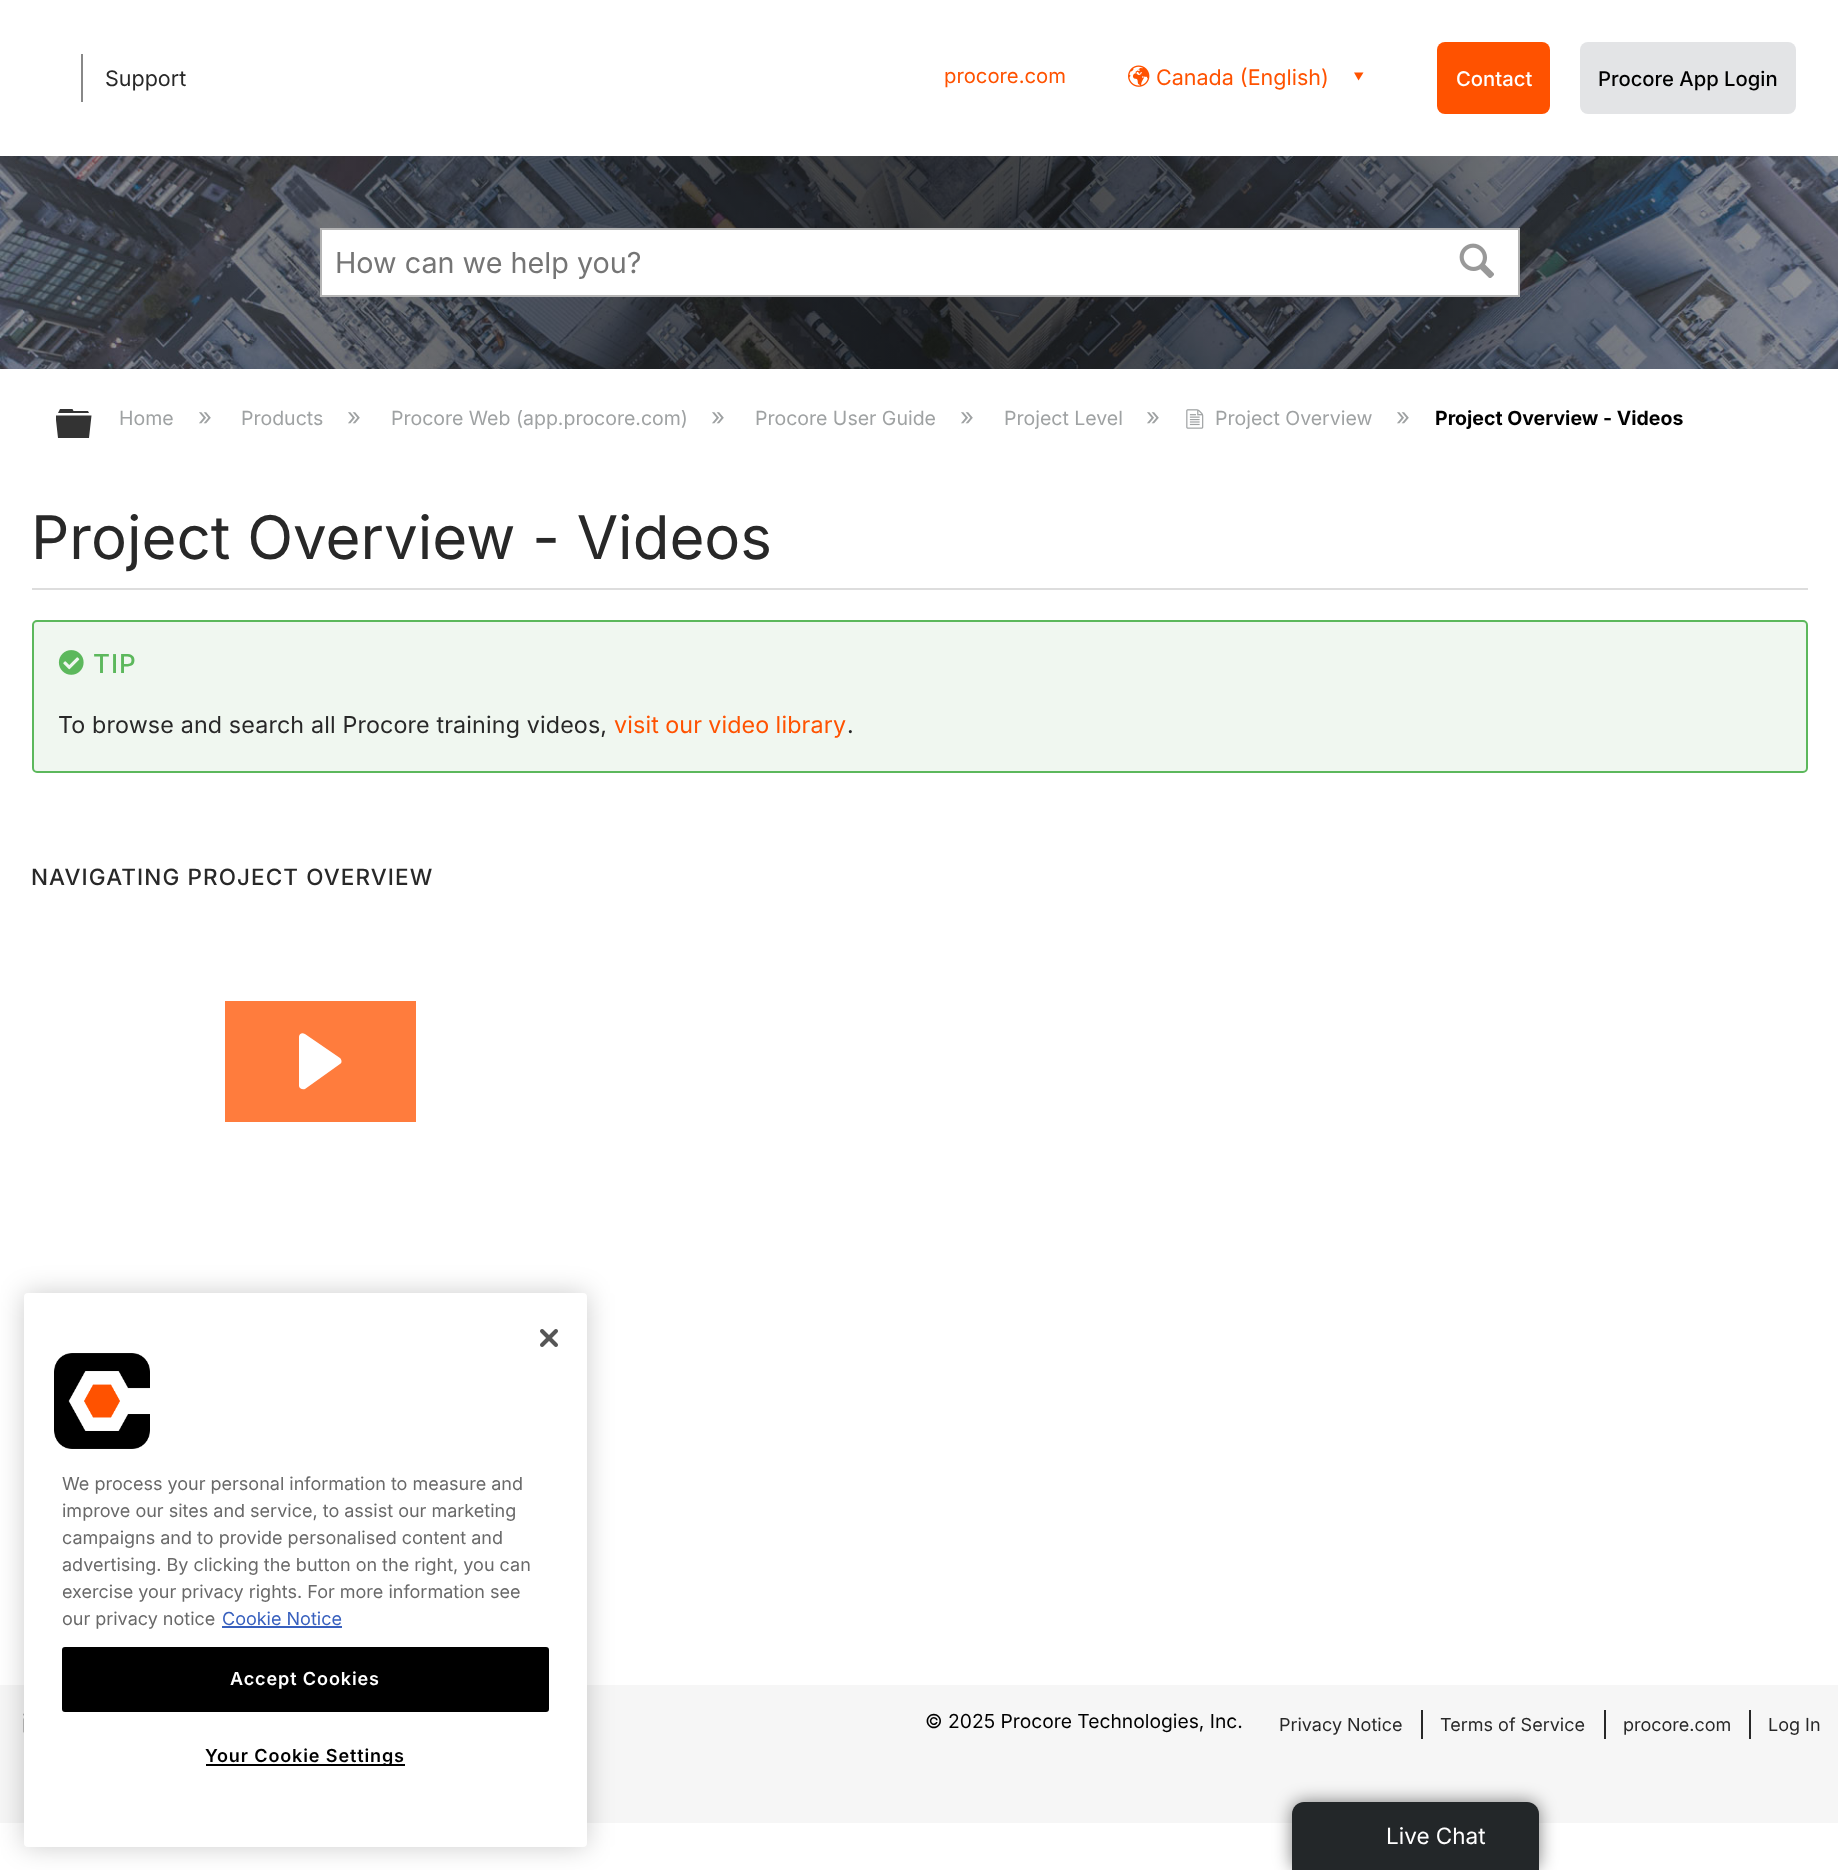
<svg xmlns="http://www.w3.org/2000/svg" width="1838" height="1870">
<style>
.a{font:21.5px Inter;fill:#282828}
.b{font:20.25px Inter;fill:#ff5200}
.c{font:21.5px Inter;fill:#ff5200}
.d{font:500 20.25px Inter;fill:#fff}
.e{font:500 20.25px Inter;fill:#000}
.f{font:28.75px Inter;fill:#757575}
.g{font:19.5px Inter;fill:#9fa2a3}
.h{font:24px Inter;fill:#9fa2a3}
.i{font:bold 19.5px Inter;fill:#000}
.j{font:60px Inter;fill:#282828}
.k{font:500 26px Inter;letter-spacing:1px;fill:#5cb85c}
.l{font:23.25px Inter;letter-spacing:0.15px;fill:#282828}
.m{font:23.25px Inter;letter-spacing:0.15px;fill:#ff5200}
.n{font:500 22.5px Inter;letter-spacing:1.1px;fill:#282828}
.o{font:19.25px Inter;fill:#000}
.p{font:18px Inter;fill:#282828}
.q{font:22.5px Inter;fill:#fff}
.r{font:18px Inter;fill:#696969}
.s{font:18px Inter;fill:#3860be}
.t{font:600 18px Inter;letter-spacing:0.9px;fill:#fff}
.u{font:600 18px Inter;letter-spacing:0.9px;fill:#000}
</style>
<rect width="100%" height="100%" fill="#fff"/>
<path fill="#888" d="M81 54h2v48H81z"/>
<image href="1.png" x="1128" y="65" width="22" height="22"/>
<path fill="#ff5200" d="M1363.5 72.5h-9.5l4.5 8z"/>
<rect fill="#ff5200" x="1437" y="42" width="113" height="72" rx="8"/>
<rect fill="#e3e4e6" x="1580" y="42" width="216" height="72" rx="8"/>
<image href="2.png" x="0" y="156" width="1838" height="213"/>
<path fill="#fff" stroke="#b4b4b4" stroke-width="2" d="M321 229h1198v67H321z"/>
<image href="3.png" x="1459" y="243" width="35" height="35"/>
<path fill="#333" fill-rule="evenodd" d="M56 420v-4.5h35.5l-2.5 22.5h-31zm32-9h-14.5l-1-2h-12.5l-2 4h31z"/>
<image href="4.png" x="1186" y="409" width="18" height="20"/>
<path fill="#ddd" d="M32 588h1776v2H32z"/>
<rect fill="#f0f7f0" stroke="#5cb85c" stroke-width="2" x="33" y="621" width="1774" height="151" rx="4"/>
<image href="5.png" x="58" y="650" width="26" height="25"/>
<path fill="#ff7c3d" d="M225 1001h191v121H225z"/>
<path fill="#fff" fill-rule="evenodd" d="M305 1034c-3-2-6 0-6 3v49c0 2 3 4 6 3l35-25c2-1 2-4 0-6z"/>
<path fill="#f6f6f6" d="M0 1685h1838v138H0z"/>
<image href="6.png" x="23" y="1713" width="1" height="20"/>
<path fill="#282828" d="M1421 1710h2v29H1421z"/>
<path fill="#282828" d="M1604 1710h2v29H1604z"/>
<path fill="#282828" d="M1749 1710h2v29H1749z"/>
<rect fill="#00000080" filter="blur(9px)" x="1292" y="1802" width="247" height="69" rx="12"/>
<path fill="#232729" d="M1304 1802h223c6.5 0 12 5.5 12 12v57h-247v-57c0-6.5 5.5-12 12-12z"/>
<rect fill="#00000033" filter="blur(13.5px)" x="24" y="1293" width="563" height="554" rx="4"/>
<rect fill="#fff" x="24" y="1293" width="563" height="554" rx="4"/>
<image href="7.png" x="540" y="1329" width="18" height="18"/>
<image href="8.png" x="54" y="1353" width="96" height="96"/>
<path fill="#3860be" d="M222 1626h120v2H222z"/>
<rect fill="#000" stroke="#000" stroke-width="2" x="63" y="1648" width="485" height="63" rx="2"/>
<path fill="#000" d="M206 1764h199v2H206z"/>
<text class="a" x="105" y="86">Support</text>
<text class="b" x="944" y="83">procore.com</text>
<text class="c" x="1156" y="85">Canada (English)</text>
<text class="d" x="1456" y="86">Contact</text>
<text class="e" x="1598" y="86">Procore App Login</text>
<text class="f" x="335" y="273">How can we help you?</text>
<text class="g" x="119" y="425">Home</text>
<text class="h" x="198" y="425">»</text>
<text class="g" x="241" y="425">Products</text>
<text class="h" x="347" y="425">»</text>
<text class="g" x="391" y="425">Procore Web (app.procore.com)</text>
<text class="h" x="711" y="425">»</text>
<text class="g" x="755" y="425">Procore User Guide</text>
<text class="h" x="960" y="425">»</text>
<text class="g" x="1004" y="425">Project Level</text>
<text class="h" x="1146" y="425">»</text>
<text class="g" x="1215" y="425">Project Overview</text>
<text class="h" x="1396" y="425">»</text>
<text class="i" x="1435" y="425">Project Overview - Videos</text>
<text class="j" x="31" y="559">Project Overview - Videos</text>
<text class="k" x="93" y="673">TIP</text>
<text class="l" x="58" y="733">To browse and search all Procore training videos,</text>
<text class="m" x="614" y="733" word-spacing="-0.5">visit our video library</text>
<text class="l" x="847" y="733">.</text>
<text class="n" x="31" y="885">NAVIGATING PROJECT OVERVIEW</text>
<text class="o" x="925" y="1728">© 2025 Procore Technologies, Inc.</text>
<text class="p" x="1279" y="1731">Privacy Notice</text>
<text class="p" x="1440" y="1731">Terms of Service</text>
<text class="p" x="1623" y="1731">procore.com</text>
<text class="p" x="1768" y="1731">Log In</text>
<text class="q" x="1386" y="1844">Live Chat</text>
<text class="r" x="62" y="1490">We process your personal information to measure and</text>
<text class="r" x="62" y="1517">improve our sites and service, to assist our marketing</text>
<text class="r" x="62" y="1544">campaigns and to provide personalised content and</text>
<text class="r" x="62" y="1571">advertising. By clicking the button on the right, you can</text>
<text class="r" x="62" y="1598">exercise your privacy rights. For more information see</text>
<text class="r" x="62" y="1625">our privacy notice</text>
<text class="s" x="222" y="1625">Cookie Notice</text>
<text class="t" x="230" y="1685">Accept Cookies</text>
<text class="u" x="205" y="1762">Your Cookie Settings</text>
</svg>
